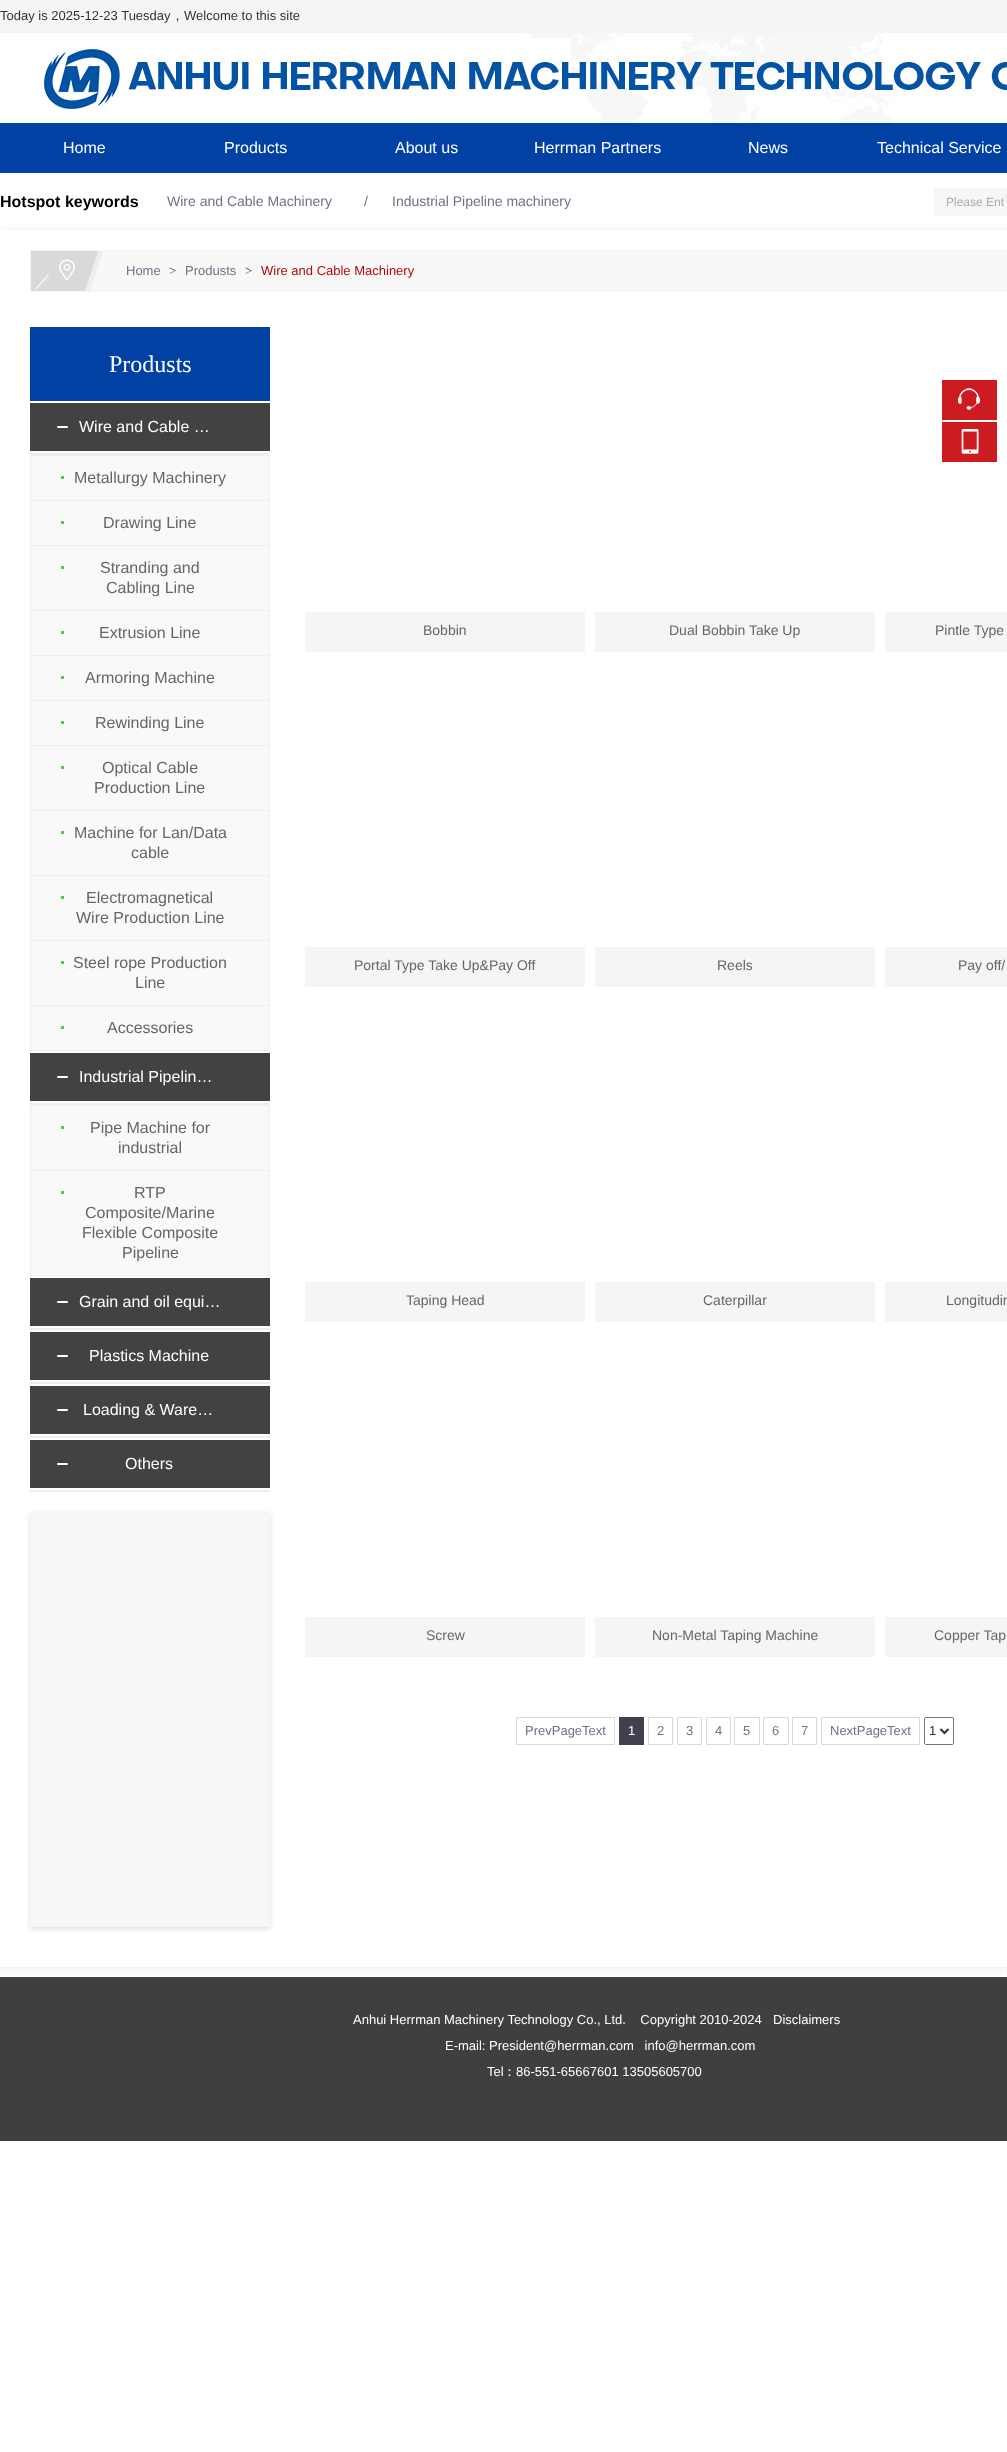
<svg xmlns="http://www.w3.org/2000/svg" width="1007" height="2452">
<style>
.a{font:13px Liberation Sans;fill:#333}
.b{font:500 13px WenQuanYi Zen Hei;fill:#333}
.c{font:16px Liberation Sans;fill:#fff}
.d{font:bold 16px Liberation Sans;fill:#000}
.e{font:14px Liberation Sans;fill:#727084}
.f{font:12px Liberation Sans;fill:#aaa}
.g{font:13px Liberation Sans;fill:#727084}
.h{font:13px Liberation Serif;fill:#333}
.i{font:13px Liberation Sans;fill:#ae0b11}
.j{font:24px Liberation Serif;fill:#fff}
.k{font:16px Liberation Sans;fill:#666}
.l{font:14px Liberation Sans;fill:#666}
.m{font:13px Liberation Sans;fill:#fff}
.n{font:500 13px WenQuanYi Zen Hei;fill:#fff}
</style>
<rect width="100%" height="100%" fill="#fff"/>
<path fill="#f5f5f5" d="M0 0h1007v33H0z"/>
<image href="1.png" x="40" y="33" width="967" height="90"/>
<path fill="#0141a3" d="M0 123h1007v50H0z"/>
<image href="2.png" x="0" y="1967" width="1007" height="9"/>
<path fill="#3f3f3f" d="M0 1977h1007v164H0z"/>
<path fill="#eee" filter="blur(5px)" d="M0 231h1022v1737H0z"/>
<path fill="#f5f6f7" d="M934 188h73v28H934z"/>
<path fill="#fff" d="M0 230h1007v1737H0z"/>
<path fill="#f9f8f8" d="M90 251h917v40H90z"/>
<path fill="none" stroke="#faf5f0" d="M30.5 250.5h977v41H30.5z"/>
<image href="3.png" x="31" y="251" width="72" height="40"/>
<path fill="#0141a3" d="M30 327h240v74H30z"/>
<path fill="#424242" d="M30 403h240v48H30z"/>
<path fill="#eee" d="M30 453h240v2H30z"/>
<image href="4.png" x="57" y="426" width="11" height="2"/>
<path fill="#eeefee" d="M30 455h240v1H30z"/>
<path fill="#eeefee" d="M269 455h1v596H269z"/>
<path fill="#eeefee" d="M30 455h1v596H30z"/>
<path fill="#f9f9f9" d="M31 456h238v44H31z"/>
<path fill="#efefef" d="M31 500h238v1H31z"/>
<path fill="#53c549" d="M61 476h3v3H61z"/>
<path fill="#f9f9f9" d="M31 501h238v44H31z"/>
<path fill="#efefef" d="M31 545h238v1H31z"/>
<path fill="#53c549" d="M61 521h3v3H61z"/>
<path fill="#f9f9f9" d="M31 546h238v64H31z"/>
<path fill="#efefef" d="M31 610h238v1H31z"/>
<path fill="#53c549" d="M61 566h3v3H61z"/>
<path fill="#f9f9f9" d="M31 611h238v44H31z"/>
<path fill="#efefef" d="M31 655h238v1H31z"/>
<path fill="#53c549" d="M61 631h3v3H61z"/>
<path fill="#f9f9f9" d="M31 656h238v44H31z"/>
<path fill="#efefef" d="M31 700h238v1H31z"/>
<path fill="#53c549" d="M61 676h3v3H61z"/>
<path fill="#f9f9f9" d="M31 701h238v44H31z"/>
<path fill="#efefef" d="M31 745h238v1H31z"/>
<path fill="#53c549" d="M61 721h3v3H61z"/>
<path fill="#f9f9f9" d="M31 746h238v64H31z"/>
<path fill="#efefef" d="M31 810h238v1H31z"/>
<path fill="#53c549" d="M61 766h3v3H61z"/>
<path fill="#f9f9f9" d="M31 811h238v64H31z"/>
<path fill="#efefef" d="M31 875h238v1H31z"/>
<path fill="#53c549" d="M61 831h3v3H61z"/>
<path fill="#f9f9f9" d="M31 876h238v64H31z"/>
<path fill="#efefef" d="M31 940h238v1H31z"/>
<path fill="#53c549" d="M61 896h3v3H61z"/>
<path fill="#f9f9f9" d="M31 941h238v64H31z"/>
<path fill="#efefef" d="M31 1005h238v1H31z"/>
<path fill="#53c549" d="M61 961h3v3H61z"/>
<path fill="#f9f9f9" d="M31 1006h238v44H31z"/>
<path fill="#efefef" d="M31 1050h238v1H31z"/>
<path fill="#53c549" d="M61 1026h3v3H61z"/>
<path fill="#424242" d="M30 1053h240v48H30z"/>
<path fill="#eee" d="M30 1103h240v2H30z"/>
<image href="4.png" x="57" y="1076" width="11" height="2"/>
<path fill="#eeefee" d="M30 1105h240v1H30z"/>
<path fill="#eeefee" d="M269 1105h1v171H269z"/>
<path fill="#eeefee" d="M30 1105h1v171H30z"/>
<path fill="#f9f9f9" d="M31 1106h238v64H31z"/>
<path fill="#efefef" d="M31 1170h238v1H31z"/>
<path fill="#53c549" d="M61 1126h3v3H61z"/>
<path fill="#f9f9f9" d="M31 1171h238v104H31z"/>
<path fill="#efefef" d="M31 1275h238v1H31z"/>
<path fill="#53c549" d="M61 1191h3v3H61z"/>
<path fill="#424242" d="M30 1278h240v48H30z"/>
<path fill="#eee" d="M30 1328h240v2H30z"/>
<image href="4.png" x="57" y="1301" width="11" height="2"/>
<path fill="#424242" d="M30 1332h240v48H30z"/>
<path fill="#eee" d="M30 1382h240v2H30z"/>
<image href="4.png" x="57" y="1355" width="11" height="2"/>
<path fill="#424242" d="M30 1386h240v48H30z"/>
<path fill="#eee" d="M30 1436h240v2H30z"/>
<image href="4.png" x="57" y="1409" width="11" height="2"/>
<path fill="#424242" d="M30 1440h240v48H30z"/>
<path fill="#eee" d="M30 1490h240v2H30z"/>
<image href="4.png" x="57" y="1463" width="11" height="2"/>
<path fill="#ddd" filter="blur(2.5px)" d="M30 1514h240v415H30z"/>
<path fill="#f6f6f6" d="M30 1512h240v415H30z"/>
<path fill="#f5f5f5" d="M305 612h280v40H305z"/>
<path fill="#f5f5f5" d="M595 612h280v40H595z"/>
<path fill="#f5f5f5" d="M885 612h122v40H885z"/>
<path fill="#f5f5f5" d="M305 947h280v40H305z"/>
<path fill="#f5f5f5" d="M595 947h280v40H595z"/>
<path fill="#f5f5f5" d="M885 947h122v40H885z"/>
<path fill="#f5f5f5" d="M305 1282h280v40H305z"/>
<path fill="#f5f5f5" d="M595 1282h280v40H595z"/>
<path fill="#f5f5f5" d="M885 1282h122v40H885z"/>
<path fill="#f5f5f5" d="M305 1617h280v40H305z"/>
<path fill="#f5f5f5" d="M595 1617h280v40H595z"/>
<path fill="#f5f5f5" d="M885 1617h122v40H885z"/>
<path fill="none" stroke="#d9d9d9" d="M516.5 1717.5h98v27H516.5z"/>
<path fill="#41414e" d="M619 1717h25v28H619z"/>
<path fill="none" stroke="#d9d9d9" d="M648.5 1717.5h24v27H648.5z"/>
<path fill="none" stroke="#d9d9d9" d="M677.5 1717.5h24v27H677.5z"/>
<path fill="none" stroke="#d9d9d9" d="M706.5 1717.5h24v27H706.5z"/>
<path fill="none" stroke="#d9d9d9" d="M734.5 1717.5h25v27H734.5z"/>
<path fill="none" stroke="#d9d9d9" d="M763.5 1717.5h25v27H763.5z"/>
<path fill="none" stroke="#d9d9d9" d="M792.5 1717.5h24v27H792.5z"/>
<path fill="none" stroke="#d9d9d9" d="M821.5 1717.5h98v27H821.5z"/>
<rect fill="none" stroke="#767676" x="924.5" y="1717.5" width="29" height="27" rx="1.5"/>
<path fill="none" stroke="#333" stroke-width="2" d="M940.5 1729l4 4l4-4"/>
<path fill="#cd1b22" d="M942 380h55v40H942z"/>
<image href="5.png" x="958" y="388" width="22" height="22"/>
<path fill="#cd1b22" d="M942 422h55v40H942z"/>
<image href="6.png" x="961" y="429" width="18" height="25"/>
<text class="a" x="0" y="20">Today is 2025-12-23 Tuesday</text>
<text class="b" x="171" y="20">，</text>
<text class="a" x="184" y="20">Welcome to this site</text>
<text class="c" x="63" y="153">Home</text>
<text class="c" x="224" y="153">Products</text>
<text class="c" x="395" y="153">About us</text>
<text class="c" x="534" y="153">Herrman Partners</text>
<text class="c" x="748" y="153">News</text>
<text class="c" x="877" y="153">Technical Service</text>
<text class="d" x="0" y="207">Hotspot keywords</text>
<text class="e" x="167" y="206">Wire and Cable Machinery</text>
<text class="e" x="364" y="206">/</text>
<text class="e" x="392" y="206">Industrial Pipeline machinery</text>
<text class="f" x="946" y="206">Please Ent</text>
<text class="g" x="126" y="275">Home</text>
<text class="h" x="169" y="275">&gt;</text>
<text class="g" x="185" y="275">Produsts</text>
<text class="h" x="245" y="275">&gt;</text>
<text class="i" x="261" y="275">Wire and Cable Machinery</text>
<text class="j" x="109" y="372">Produsts</text>
<text class="c" x="79" y="432">Wire and Cable …</text>
<text class="k" x="74" y="483">Metallurgy Machinery</text>
<text class="k" x="103" y="528">Drawing Line</text>
<text class="k" x="100" y="573">Stranding and</text>
<text class="k" x="106" y="593">Cabling Line</text>
<text class="k" x="99" y="638">Extrusion Line</text>
<text class="k" x="85" y="683">Armoring Machine</text>
<text class="k" x="95" y="728">Rewinding Line</text>
<text class="k" x="102" y="773">Optical Cable</text>
<text class="k" x="94" y="793">Production Line</text>
<text class="k" x="74" y="838">Machine for Lan/Data</text>
<text class="k" x="131" y="858">cable</text>
<text class="k" x="86" y="903">Electromagnetical</text>
<text class="k" x="76" y="923">Wire Production Line</text>
<text class="k" x="73" y="968">Steel rope Production</text>
<text class="k" x="135" y="988">Line</text>
<text class="k" x="107" y="1033">Accessories</text>
<text class="c" x="79" y="1082">Industrial Pipelin…</text>
<text class="k" x="90" y="1133">Pipe Machine for</text>
<text class="k" x="118" y="1153">industrial</text>
<text class="k" x="134" y="1198">RTP</text>
<text class="k" x="85" y="1218">Composite/Marine</text>
<text class="k" x="82" y="1238">Flexible Composite</text>
<text class="k" x="122" y="1258">Pipeline</text>
<text class="c" x="79" y="1307">Grain and oil equi…</text>
<text class="c" x="89" y="1361">Plastics Machine</text>
<text class="c" x="83" y="1415">Loading &amp; Ware…</text>
<text class="c" x="125" y="1469">Others</text>
<text class="l" x="423" y="635">Bobbin</text>
<text class="l" x="669" y="635">Dual Bobbin Take Up</text>
<text class="l" x="935" y="635">Pintle Type</text>
<text class="l" x="354" y="970">Portal Type Take Up&amp;Pay Off</text>
<text class="l" x="717" y="970">Reels</text>
<text class="l" x="958" y="970">Pay off/</text>
<text class="l" x="406" y="1305">Taping Head</text>
<text class="l" x="703" y="1305">Caterpillar</text>
<text class="l" x="946" y="1305">Longitudin</text>
<text class="l" x="426" y="1640">Screw</text>
<text class="l" x="652" y="1640">Non-Metal Taping Machine</text>
<text class="l" x="934" y="1640">Copper Tap</text>
<text class="g" x="525" y="1735">PrevPageText</text>
<text class="m" x="628" y="1735">1</text>
<text class="g" x="657" y="1735">2</text>
<text class="g" x="686" y="1735">3</text>
<text class="g" x="715" y="1735">4</text>
<text class="g" x="743" y="1735">5</text>
<text class="g" x="772" y="1735">6</text>
<text class="g" x="801" y="1735">7</text>
<text class="g" x="830" y="1735">NextPageText</text>
<text class="a" x="929" y="1735">1</text>
<text class="m" xml:space="preserve" x="353" y="2024">Anhui Herrman Machinery Technology Co., Ltd.    Copyright 2010-2024</text>
<text class="m" x="773" y="2024">Disclaimers</text>
<text class="m" xml:space="preserve" x="445" y="2050">E-mail: President@herrman.com   info@herrman.com</text>
<text class="m" x="487" y="2076">Tel</text>
<text class="n" x="503" y="2076">：</text>
<text class="m" x="516" y="2076">86-551-65667601 13505605700</text>
</svg>
